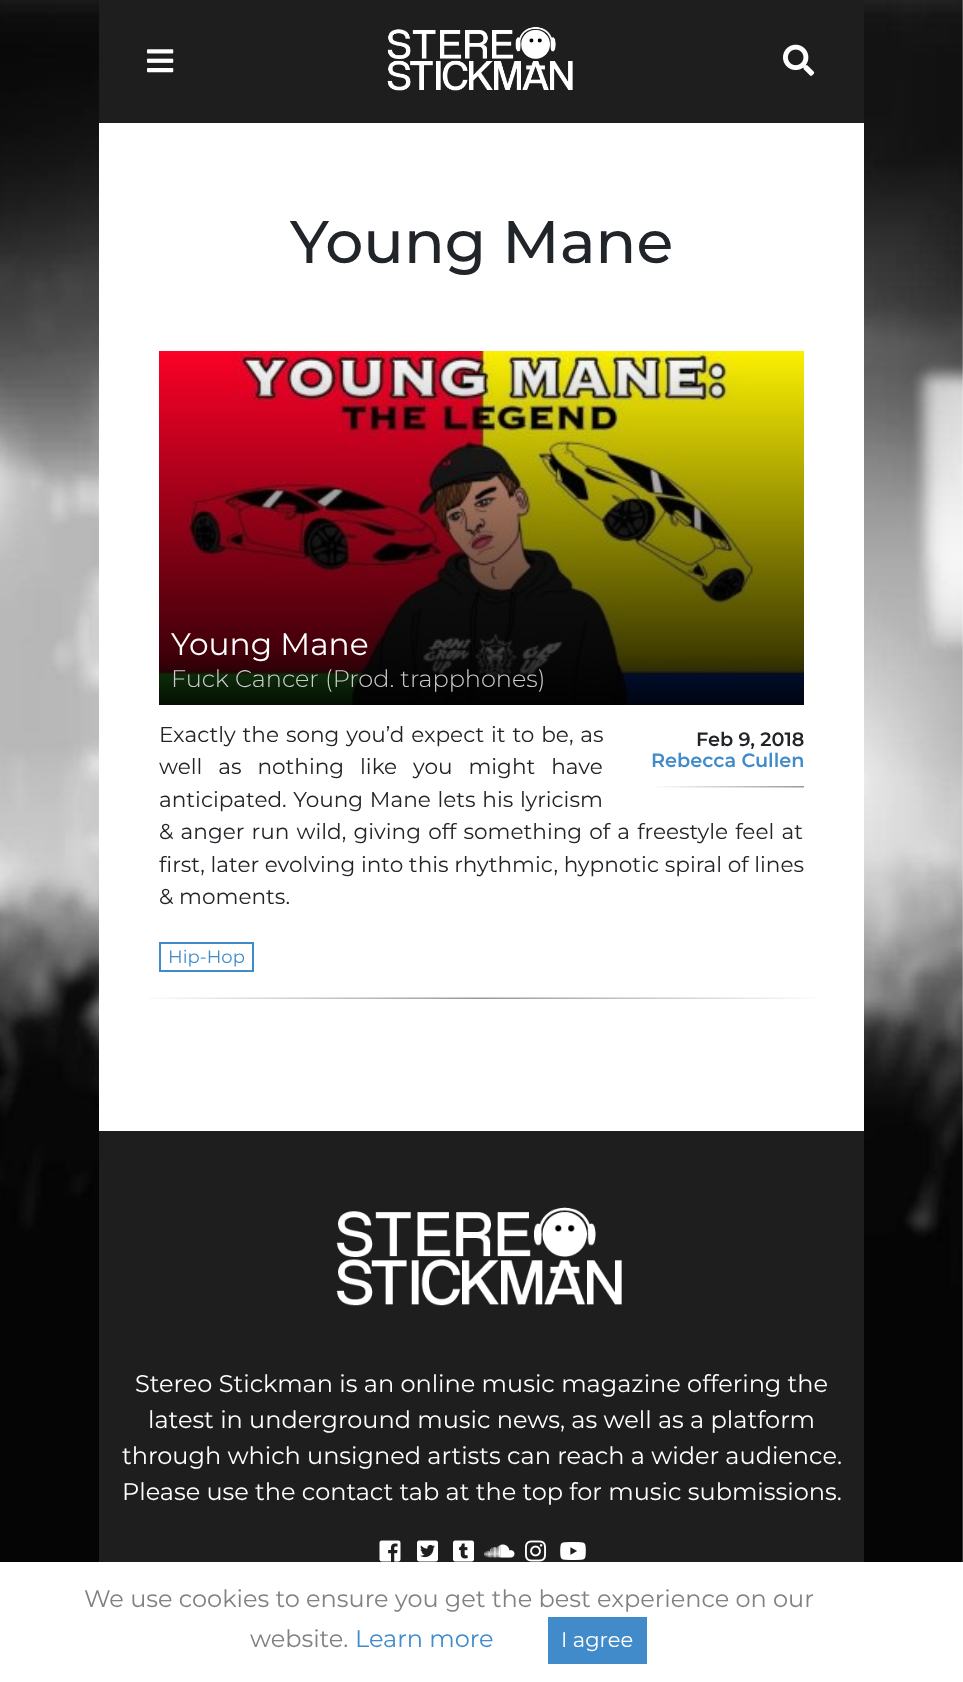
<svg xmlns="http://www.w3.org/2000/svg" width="963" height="1682">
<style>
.a{font:500 60px Montserrat;fill:#212529}
.b{font:31.25px Montserrat;fill:#fff}
.c{font:300 24px Montserrat;fill:#ccc}
.d{font:21.6px Montserrat;fill:#212529}
.e{font:600 19.25px Montserrat;fill:#212529}
.f{font:600 19.25px Montserrat;fill:#428bca}
.g{font:18px Montserrat;fill:#428bca}
.h{font:24px Montserrat;fill:#fff}
.i{font:24px Montserrat;fill:#818182}
.j{font:24px Montserrat;fill:#428bca}
.k{font:21px Montserrat;fill:#fff}
</style>
<rect width="100%" height="100%" fill="#fff"/>
<image href="1.png" x="0" y="0" width="963" height="1562"/>
<path fill="#fff" d="M99 123h765v1008H99z"/>
<path fill="#1e1e1e" d="M99 0h765v123H99z"/>
<image href="2.png" x="147" y="49" width="27" height="24"/>
<image href="3.png" x="387" y="26" width="186" height="65"/>
<image href="4.png" x="783" y="44" width="32" height="32"/>
<image href="5.png" x="148" y="997" width="667" height="2"/>
<image href="6.png" x="159" y="351" width="645" height="354"/>
<image href="7.png" x="656" y="786" width="148" height="2"/>
<path fill="none" stroke="#428bca" stroke-width="2" d="M160 943h93v28H160z"/>
<path fill="#1e1e1e" d="M99 1131h765v431H99z"/>
<image href="8.png" x="336" y="1207" width="286" height="99"/>
<image href="9.png" x="379" y="1540" width="22" height="22"/>
<image href="10.png" x="417" y="1540" width="21" height="22"/>
<image href="11.png" x="453" y="1540" width="21" height="22"/>
<image href="12.png" x="484" y="1544" width="31" height="14"/>
<image href="13.png" x="525" y="1540" width="21" height="22"/>
<image href="14.png" x="560" y="1542" width="26" height="18"/>
<path fill="#428bca" d="M548 1617h99v47H548z"/>
<text class="a" x="290" y="263">Young Mane</text>
<text class="b" x="171" y="655">Young Mane</text>
<text class="c" x="171" y="687">Fuck Cancer (Prod. trapphones)</text>
<text class="d" x="159" y="742" word-spacing="1.25">Exactly the song you’d expect it to be, as</text>
<text class="d" x="159" y="774" word-spacing="10.25">well as nothing like you might have</text>
<text class="d" x="159" y="807" word-spacing="1">anticipated. Young Mane lets his lyricism</text>
<text class="d" x="159" y="839" word-spacing="1.5">&amp; anger run wild, giving off something of a freestyle feel at</text>
<text class="d" x="159" y="872">first, later evolving into this rhythmic, hypnotic spiral of lines</text>
<text class="d" x="159" y="904">&amp; moments.</text>
<text class="e" x="696" y="746">Feb 9, 2018</text>
<text class="f" x="651" y="767">Rebecca Cullen</text>
<text class="g" x="168" y="963">Hip-Hop</text>
<text class="h" x="135" y="1392">Stereo Stickman is an online music magazine offering the</text>
<text class="h" x="148" y="1428">latest in underground music news, as well as a platform</text>
<text class="h" x="122" y="1464">through which unsigned artists can reach a wider audience.</text>
<text class="h" x="122" y="1500">Please use the contact tab at the top for music submissions.</text>
<text class="i" x="84" y="1607">We use cookies to ensure you get the best experience on our</text>
<text class="i" x="250" y="1647">website.</text>
<text class="j" x="355" y="1647">Learn more</text>
<text class="k" x="561" y="1647">I agree</text>
</svg>
